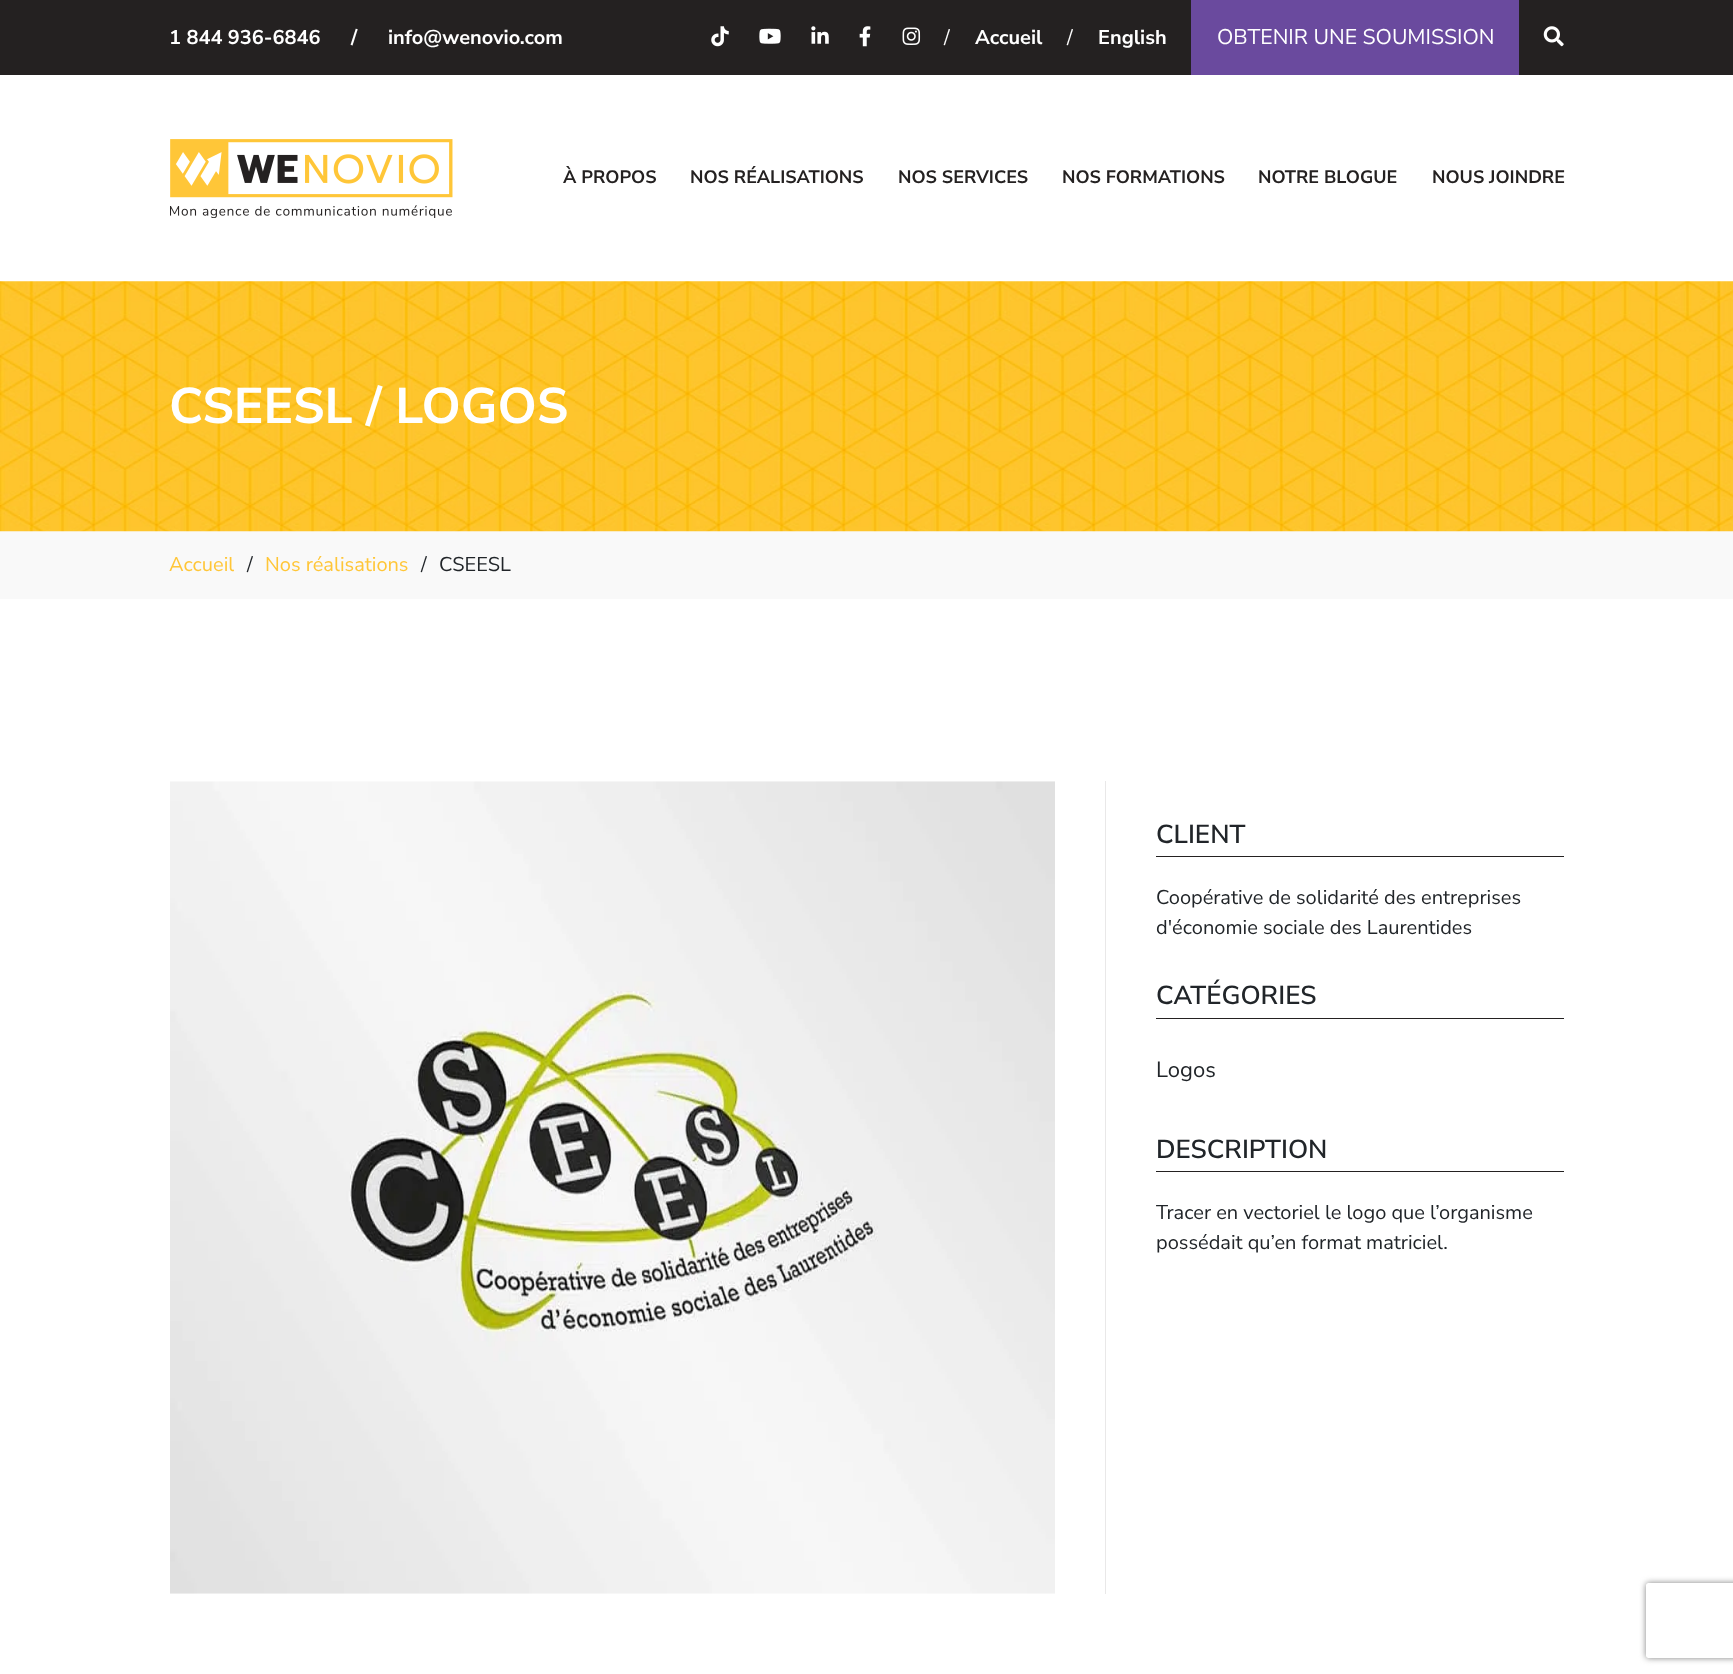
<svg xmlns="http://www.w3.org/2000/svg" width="1733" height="1674">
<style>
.a{font:bold 20px Nunito Sans;fill:#fff}
.b{font:20px Nunito Sans;fill:#fff}
.c{font:21.25px Nunito Sans;fill:#fff}
.d{font:bold 18px Nunito Sans;fill:#242121}
.e{font:bold 50px Nunito Sans;fill:#fff}
.f{font:20px Nunito Sans;fill:#ffc638}
.g{font:20px Nunito Sans;fill:#212529}
.h{font:600 26px Nunito Sans;fill:#212529}
.i{font:22px Nunito Sans;fill:#212529}
</style>
<defs>
<clipPath id="clip1"><path d="M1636 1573h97v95h-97zm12.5 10h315c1.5 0 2.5 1 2.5 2.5v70c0 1.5-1 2.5-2.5 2.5h-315c-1.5 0-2.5-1-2.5-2.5v-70c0-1.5 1-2.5 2.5-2.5z" clip-rule="evenodd"/></clipPath>
</defs>
<rect width="100%" height="100%" fill="#fff"/>
<path fill="#242121" d="M0 0h1733v75H0z"/>
<image href="1.png" x="711" y="26" width="18" height="21"/>
<image href="2.png" x="759" y="28" width="22" height="16"/>
<image href="3.png" x="811" y="26" width="18" height="18"/>
<image href="4.png" x="859" y="26" width="12" height="21"/>
<image href="5.png" x="902" y="27" width="19" height="18"/>
<path fill="#6a4a9e" d="M1191 0h328v75H1191z"/>
<image href="6.png" x="1543" y="26" width="21" height="21"/>
<image href="7.png" x="170" y="139" width="283" height="79"/>
<path fill="#f9f9f9" d="M0 531h1733v68H0z"/>
<image href="8.png" x="0" y="281" width="1733" height="251"/>
<image href="9.png" x="170" y="781" width="885" height="813"/>
<path fill="#e9e8e8" d="M1105 781h1v813H1105z"/>
<path fill="#242121" d="M1156 856h408v1H1156z"/>
<path fill="#242121" d="M1156 1018h408v1H1156z"/>
<path fill="#242121" d="M1156 1171h408v1H1156z"/>
<g clip-path="url(#clip1)">
<rect fill="#808080" filter="blur(3px)" x="1646" y="1583" width="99" height="75" rx="2.5"/>
</g>
<text class="a" x="169" y="44">1 844 936-6846</text>
<text class="a" x="351" y="44">/</text>
<text class="a" x="388" y="44">info@wenovio.com</text>
<text class="b" x="944" y="44">/</text>
<text class="a" x="975" y="44">Accueil</text>
<text class="b" x="1067" y="44">/</text>
<text class="a" x="1098" y="44">English</text>
<text class="c" x="1217" y="44">OBTENIR UNE SOUMISSION</text>
<text class="d" x="563" y="183">À PROPOS</text>
<text class="d" x="690" y="183">NOS RÉALISATIONS</text>
<text class="d" x="898" y="183">NOS SERVICES</text>
<text class="d" x="1062" y="183">NOS FORMATIONS</text>
<text class="d" x="1258" y="183">NOTRE BLOGUE</text>
<text class="d" x="1432" y="183">NOUS JOINDRE</text>
<text class="e" x="169" y="423">CSEESL / LOGOS</text>
<text class="f" x="169" y="571">Accueil</text>
<text class="g" x="247" y="571">/</text>
<text class="f" x="265" y="571">Nos réalisations</text>
<text class="g" x="421" y="571">/</text>
<text class="g" x="439" y="571">CSEESL</text>
<text class="h" x="1156" y="843">CLIENT</text>
<text class="g" x="1156" y="904">Coopérative de solidarité des entreprises</text>
<text class="g" x="1156" y="934">d'économie sociale des Laurentides</text>
<text class="h" x="1156" y="1004">CATÉGORIES</text>
<text class="i" x="1156" y="1077">Logos</text>
<text class="h" x="1156" y="1158">DESCRIPTION</text>
<text class="g" x="1156" y="1219">Tracer en vectoriel le logo que l’organisme</text>
<text class="g" x="1156" y="1249">possédait qu’en format matriciel.</text>
</svg>
